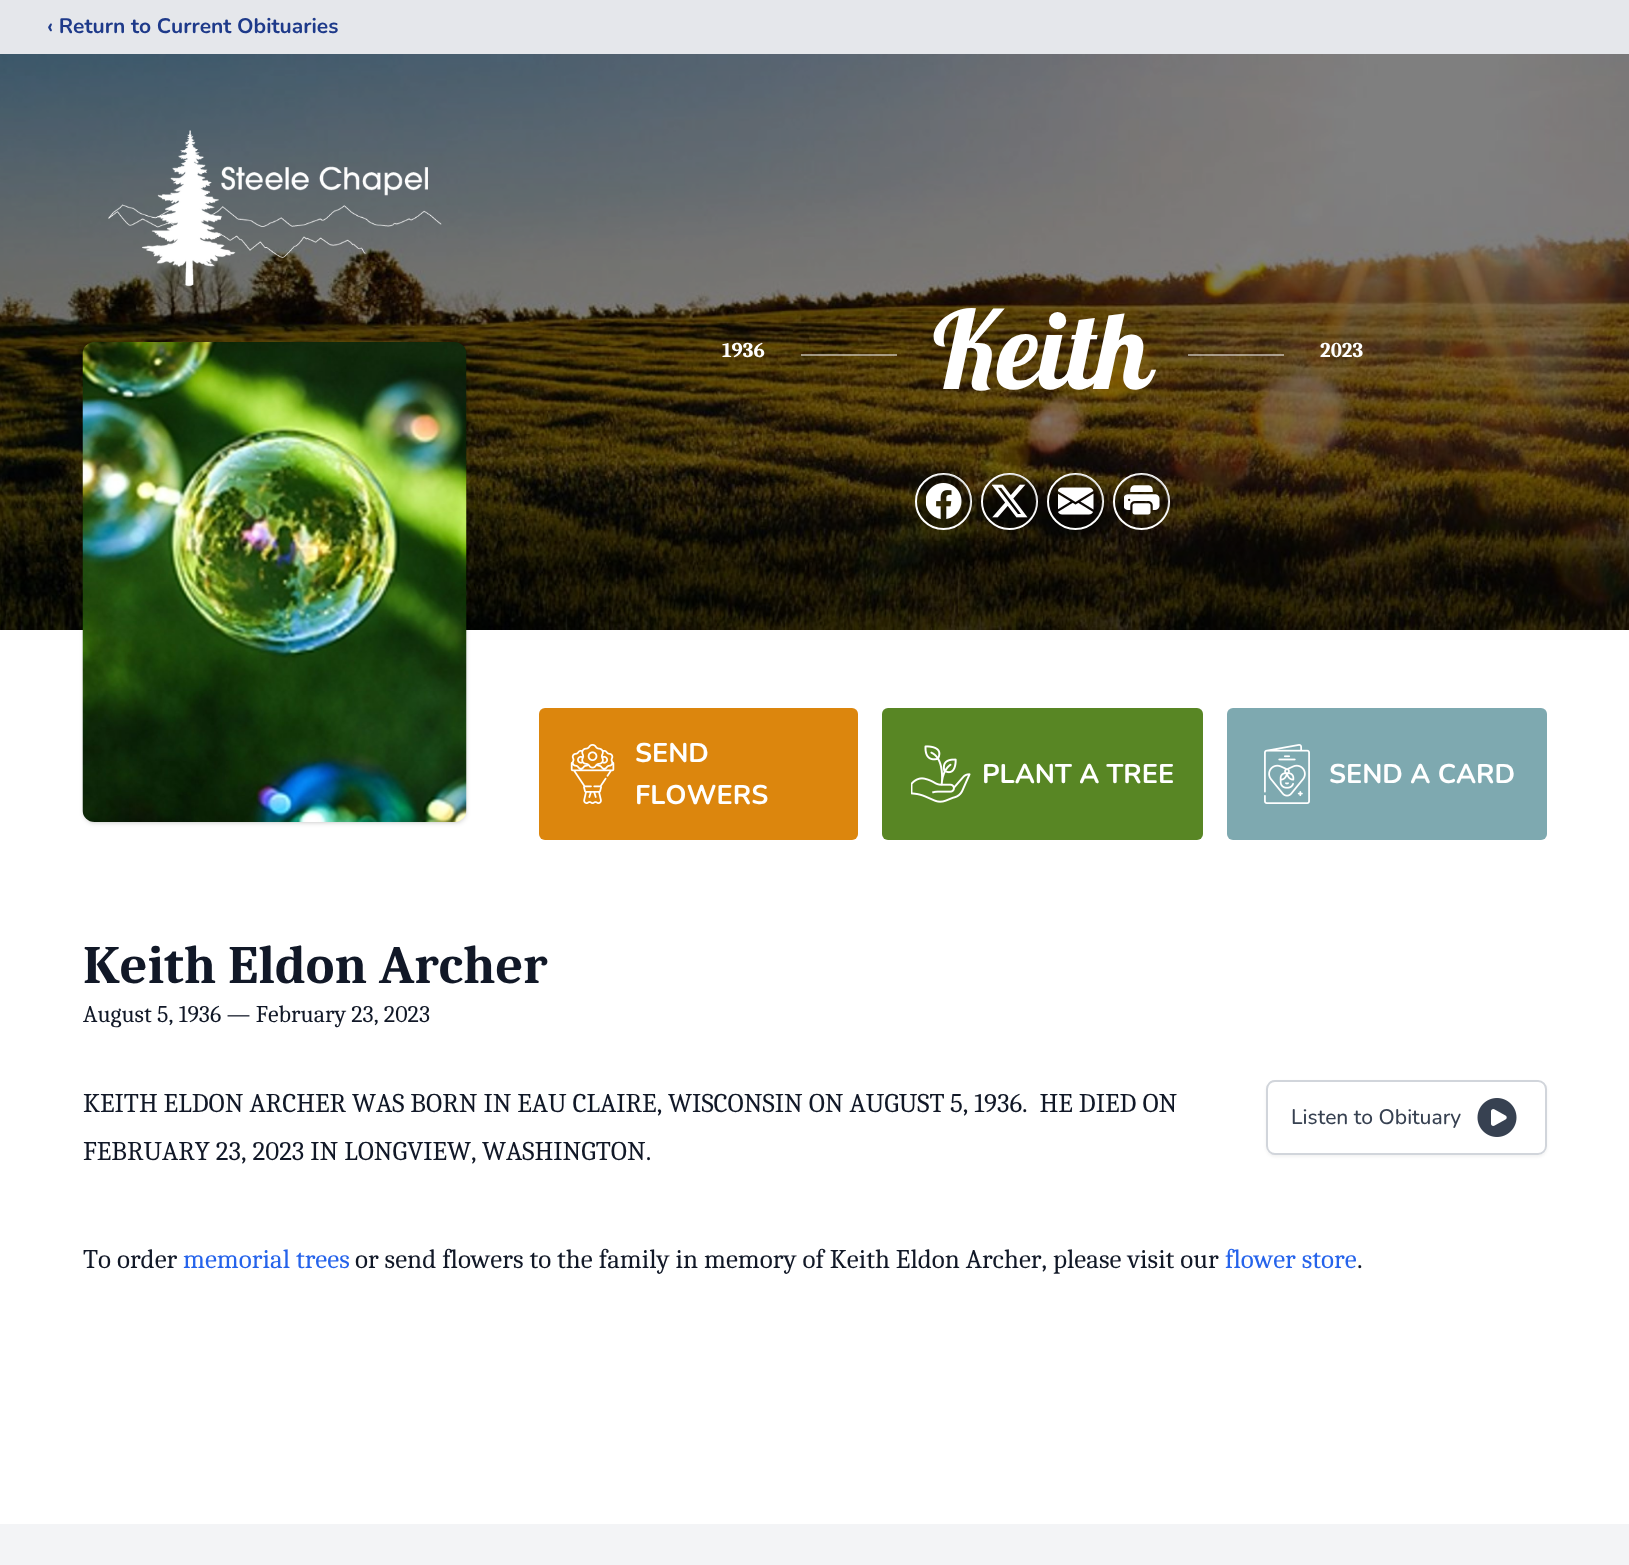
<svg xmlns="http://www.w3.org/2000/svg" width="1629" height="1565">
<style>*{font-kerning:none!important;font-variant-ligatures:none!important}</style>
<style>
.a{font:bold 21px Nunito;fill:#1e3a8a}
.b{font:bold 21px Caladea;fill:#fff}
.c{font:108px Lobster;fill:#fff}
.d{font:bold 27px Nunito;fill:#fff}
.e{font:bold 54px Caladea;fill:#111827}
.f{font:24px Caladea;fill:#111827}
.g{font:27px Caladea;fill:#111827}
.h{font:500 21px Nunito;fill:#374151}
.i{font:27px Caladea;fill:#2563eb}
</style>
<defs>
<clipPath id="clip1"><path d="M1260 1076h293v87h-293zm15 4h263c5 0 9 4 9 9v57c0 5-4 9-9 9h-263c-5 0-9-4-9-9v-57c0-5 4-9 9-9z" clip-rule="evenodd"/></clipPath>
</defs>
<rect width="100%" height="100%" fill="#fff"/>
<path fill="#e5e7eb" d="M0 0h1629v54H0z"/>
<image href="1.png" x="0" y="54" width="1629" height="576"/>
<image href="2.png" x="108" y="130" width="334" height="157"/>
<rect fill="#0000001a" filter="blur(1.5px)" x="84" y="345" width="381" height="477" rx="11"/>
<rect fill="#0000001a" filter="blur(2px)" x="83" y="344" width="384" height="480" rx="12"/>
<image href="3.png" x="82" y="342" width="385" height="480"/>
<path fill="#ffffff80" d="M801 354h96v2H801z"/>
<path fill="#ffffff80" d="M1188 354h96v2H1188z"/>
<circle fill="none" stroke="#fff" stroke-width="2" cx="943.5" cy="501.5" r="27.5"/>
<circle fill="#00000033" cx="944" cy="501" r="27"/>
<image href="4.png" x="926" y="483" width="36" height="36"/>
<circle fill="none" stroke="#fff" stroke-width="2" cx="1009.5" cy="501.5" r="27.5"/>
<circle fill="#00000033" cx="1010" cy="501" r="27"/>
<image href="5.png" x="992" y="484" width="36" height="34"/>
<circle fill="none" stroke="#fff" stroke-width="2" cx="1075.5" cy="501.5" r="27.5"/>
<circle fill="#00000033" cx="1076" cy="501" r="27"/>
<image href="6.png" x="1058" y="487" width="36" height="28"/>
<circle fill="none" stroke="#fff" stroke-width="2" cx="1141.5" cy="501.5" r="27.5"/>
<circle fill="#00000033" cx="1142" cy="501" r="27"/>
<image href="7.png" x="1124" y="485" width="36" height="30"/>
<rect fill="#dc860d" x="539" y="708" width="319" height="132" rx="6"/>
<image href="8.png" x="570" y="744" width="45" height="60"/>
<rect fill="#588624" x="882" y="708" width="321" height="132" rx="6"/>
<image href="9.png" x="911" y="745" width="60" height="58"/>
<rect fill="#7ea9b0" x="1227" y="708" width="320" height="132" rx="6"/>
<image href="10.png" x="1264" y="744" width="46" height="60"/>
<g clip-path="url(#clip1)">
<rect fill="#0000000d" filter="blur(1.5px)" x="1266" y="1082" width="281" height="75" rx="9"/>
</g>
<rect fill="none" stroke="#d1d5db" stroke-width="2" x="1267" y="1081" width="279" height="73" rx="8"/>
<image href="11.png" x="1477" y="1098" width="40" height="39"/>
<path fill="#f3f4f6" d="M0 1524h1629v41H0z"/>
<text class="a" x="47" y="33">‹ Return to Current Obituaries</text>
<text class="b" x="722" y="357">1936</text>
<text class="c" x="933" y="389">Keith</text>
<text class="b" x="1320" y="357">2023</text>
<text class="d" x="635" y="762">SEND</text>
<text class="d" x="635" y="804">FLOWERS</text>
<text class="d" x="982" y="783">PLANT A TREE</text>
<text class="d" x="1329" y="783">SEND A CARD</text>
<text class="e" x="83" y="983">Keith Eldon Archer</text>
<text class="f" x="83" y="1022">August 5, 1936 — February 23, 2023</text>
<text class="g" x="83" y="1112">KEITH ELDON ARCHER WAS BORN IN EAU CLAIRE, WISCONSIN ON AUGUST</text>
<text class="g" xml:space="preserve" x="950" y="1112">5, 1936.  HE DIED ON</text>
<text class="g" x="83" y="1160">FEBRUARY 23, 2023 IN LONGVIEW,</text>
<text class="g" x="482" y="1160">WASHINGTON.</text>
<text class="h" x="1291" y="1124">Listen to Obituary</text>
<text class="g" x="83" y="1268">To order</text>
<text class="i" x="183" y="1268">memorial trees</text>
<text class="g" x="355" y="1268">or send flowers to the family in memory of Keith Eldon Archer,</text>
<text class="g" x="1053" y="1268">please visit our</text>
<text class="i" x="1225" y="1268">flower store</text>
<text class="g" x="1357" y="1268">.</text>
</svg>
